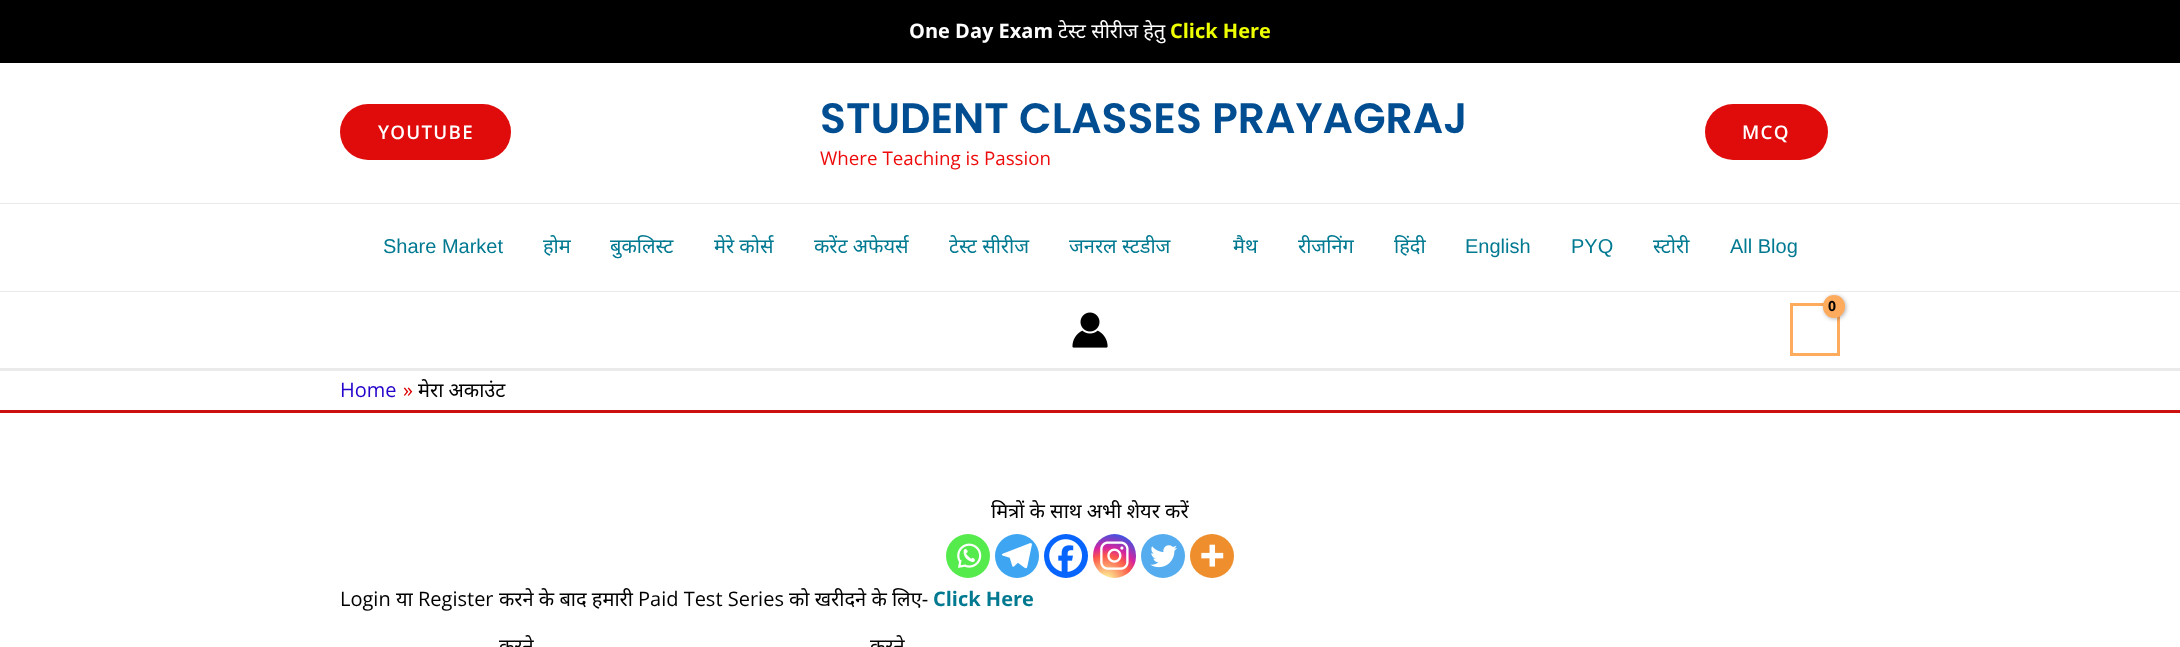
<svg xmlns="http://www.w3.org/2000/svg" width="2180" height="647">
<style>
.a{font:bold 20px Open Sans;fill:#fff}
.b{font:20px Noto Sans;fill:#fff}
.c{font:bold 20px Open Sans;fill:#ef0}
.d{font:600 18.75px Open Sans;letter-spacing:1.25px;fill:#fff}
.e{font:600 42.5px Poppins;fill:#004e91}
.f{font:18.75px Open Sans;fill:#ed0b0b}
.g{font:20px Liberation Sans;fill:#007991}
.h{font:20px Noto Sans;fill:#007991}
.i{font:bold 14px Open Sans;letter-spacing:-1px;fill:#000}
.j{font:20px Open Sans;fill:#2504cb}
.k{font:20px Open Sans;fill:#dd0202}
.l{font:20px Noto Sans;fill:#000}
.m{font:20px Open Sans;fill:#000}
.n{font:bold 20px Open Sans;fill:#007991}
</style>
<defs>
<radialGradient id="g1" gradientUnits="userSpaceOnUse" cx="1106" cy="581" r="56"><stop offset="0" stop-color="#fdf497"/><stop offset="0.05" stop-color="#fdf497"/><stop offset="0.45" stop-color="#fd5949"/><stop offset="0.6" stop-color="#d6249f"/><stop offset="0.9" stop-color="#285aeb"/></radialGradient>
</defs>
<rect width="100%" height="100%" fill="#fff"/>
<path fill="#000" d="M0 0h2180v63H0z"/>
<path fill="#eaeaea" d="M0 203h2180v1H0z"/>
<rect fill="#e00b0b" x="340" y="104" width="171" height="56" rx="28"/>
<rect fill="#e00b0b" x="1705" y="104" width="123" height="56" rx="28"/>
<path fill="none" stroke="#ffab5e" stroke-width="3" d="M1791.5 304.5h47v50H1791.5z"/>
<rect fill="#0000004d" filter="blur(2px)" x="1824" y="296" width="22" height="23" rx="11"/>
<path fill="#eaeaea" d="M0 291h2180v1H0z"/>
<path fill="#eaeaea" d="M0 368h2180v3H0z"/>
<rect fill="#ffab5e" x="1823" y="295" width="22" height="23" rx="11"/>
<image href="1.png" x="1072" y="312" width="36" height="36"/>
<path fill="#cc1010" d="M0 410h2180v3H0z"/>
<circle fill="#55eb4c" cx="968" cy="556" r="22"/>
<image href="2.png" x="957" y="543" width="25" height="25"/>
<circle fill="#3da5f1" cx="1017" cy="556" r="22"/>
<image href="3.png" x="1001" y="543" width="31" height="26"/>
<circle fill="#0765fe" cx="1066" cy="556" r="22"/>
<image href="4.png" x="1049" y="539" width="33" height="33"/>
<rect fill="url(#g1)" x="1093" y="534" width="43" height="44" rx="21.5"/>
<image href="5.png" x="1100" y="541" width="29" height="29"/>
<circle fill="#55acee" cx="1163" cy="556" r="22"/>
<image href="6.png" x="1150" y="545" width="27" height="23"/>
<circle fill="#ee8e2d" cx="1212" cy="556" r="22"/>
<image href="7.png" x="1201" y="544" width="23" height="23"/>
<text class="a" x="909" y="38">One Day Exam</text>
<text class="b" x="1058" y="38">टेस्ट सीरीज हेतु</text>
<text class="c" x="1170" y="38">Click Here</text>
<text class="d" x="378" y="139">YOUTUBE</text>
<text class="e" x="820" y="133">STUDENT CLASSES PRAYAGRAJ</text>
<text class="f" x="820" y="165">Where Teaching is Passion</text>
<text class="d" x="1742" y="139">MCQ</text>
<text class="g" x="383" y="253">Share Market</text>
<text class="h" x="543" y="253">होम</text>
<text class="h" x="610" y="253">बुकलिस्ट</text>
<text class="h" x="714" y="253">मेरे कोर्स</text>
<text class="h" x="814" y="253">करेंट अफेयर्स</text>
<text class="h" x="949" y="253">टेस्ट सीरीज</text>
<text class="h" x="1069" y="253">जनरल स्टडीज</text>
<text class="h" x="1233" y="253">मैथ</text>
<text class="h" x="1298" y="253">रीजनिंग</text>
<text class="h" x="1394" y="253">हिंदी</text>
<text class="g" x="1465" y="253">English</text>
<text class="g" x="1571" y="253">PYQ</text>
<text class="h" x="1653" y="253">स्टोरी</text>
<text class="g" x="1730" y="253">All Blog</text>
<text class="i" x="1828" y="311">0</text>
<text class="j" x="340" y="397">Home</text>
<text class="k" x="403" y="397">»</text>
<text class="l" x="418" y="397">मेरा अकाउंट</text>
<text class="l" x="991" y="518">मित्रों के साथ अभी शेयर करें</text>
<text class="m" x="340" y="606">Login</text>
<text class="l" x="396" y="606">या</text>
<text class="m" x="418" y="606">Register</text>
<text class="l" x="499" y="606">करने के बाद हमारी</text>
<text class="m" x="638" y="606">Paid Test Series</text>
<text class="l" x="789" y="606">को खरीदने के लिए-</text>
<text class="n" x="933" y="606">Click Here</text>
<text class="l" x="499" y="653">करने</text>
<text class="l" x="870" y="653">करने</text>
</svg>
